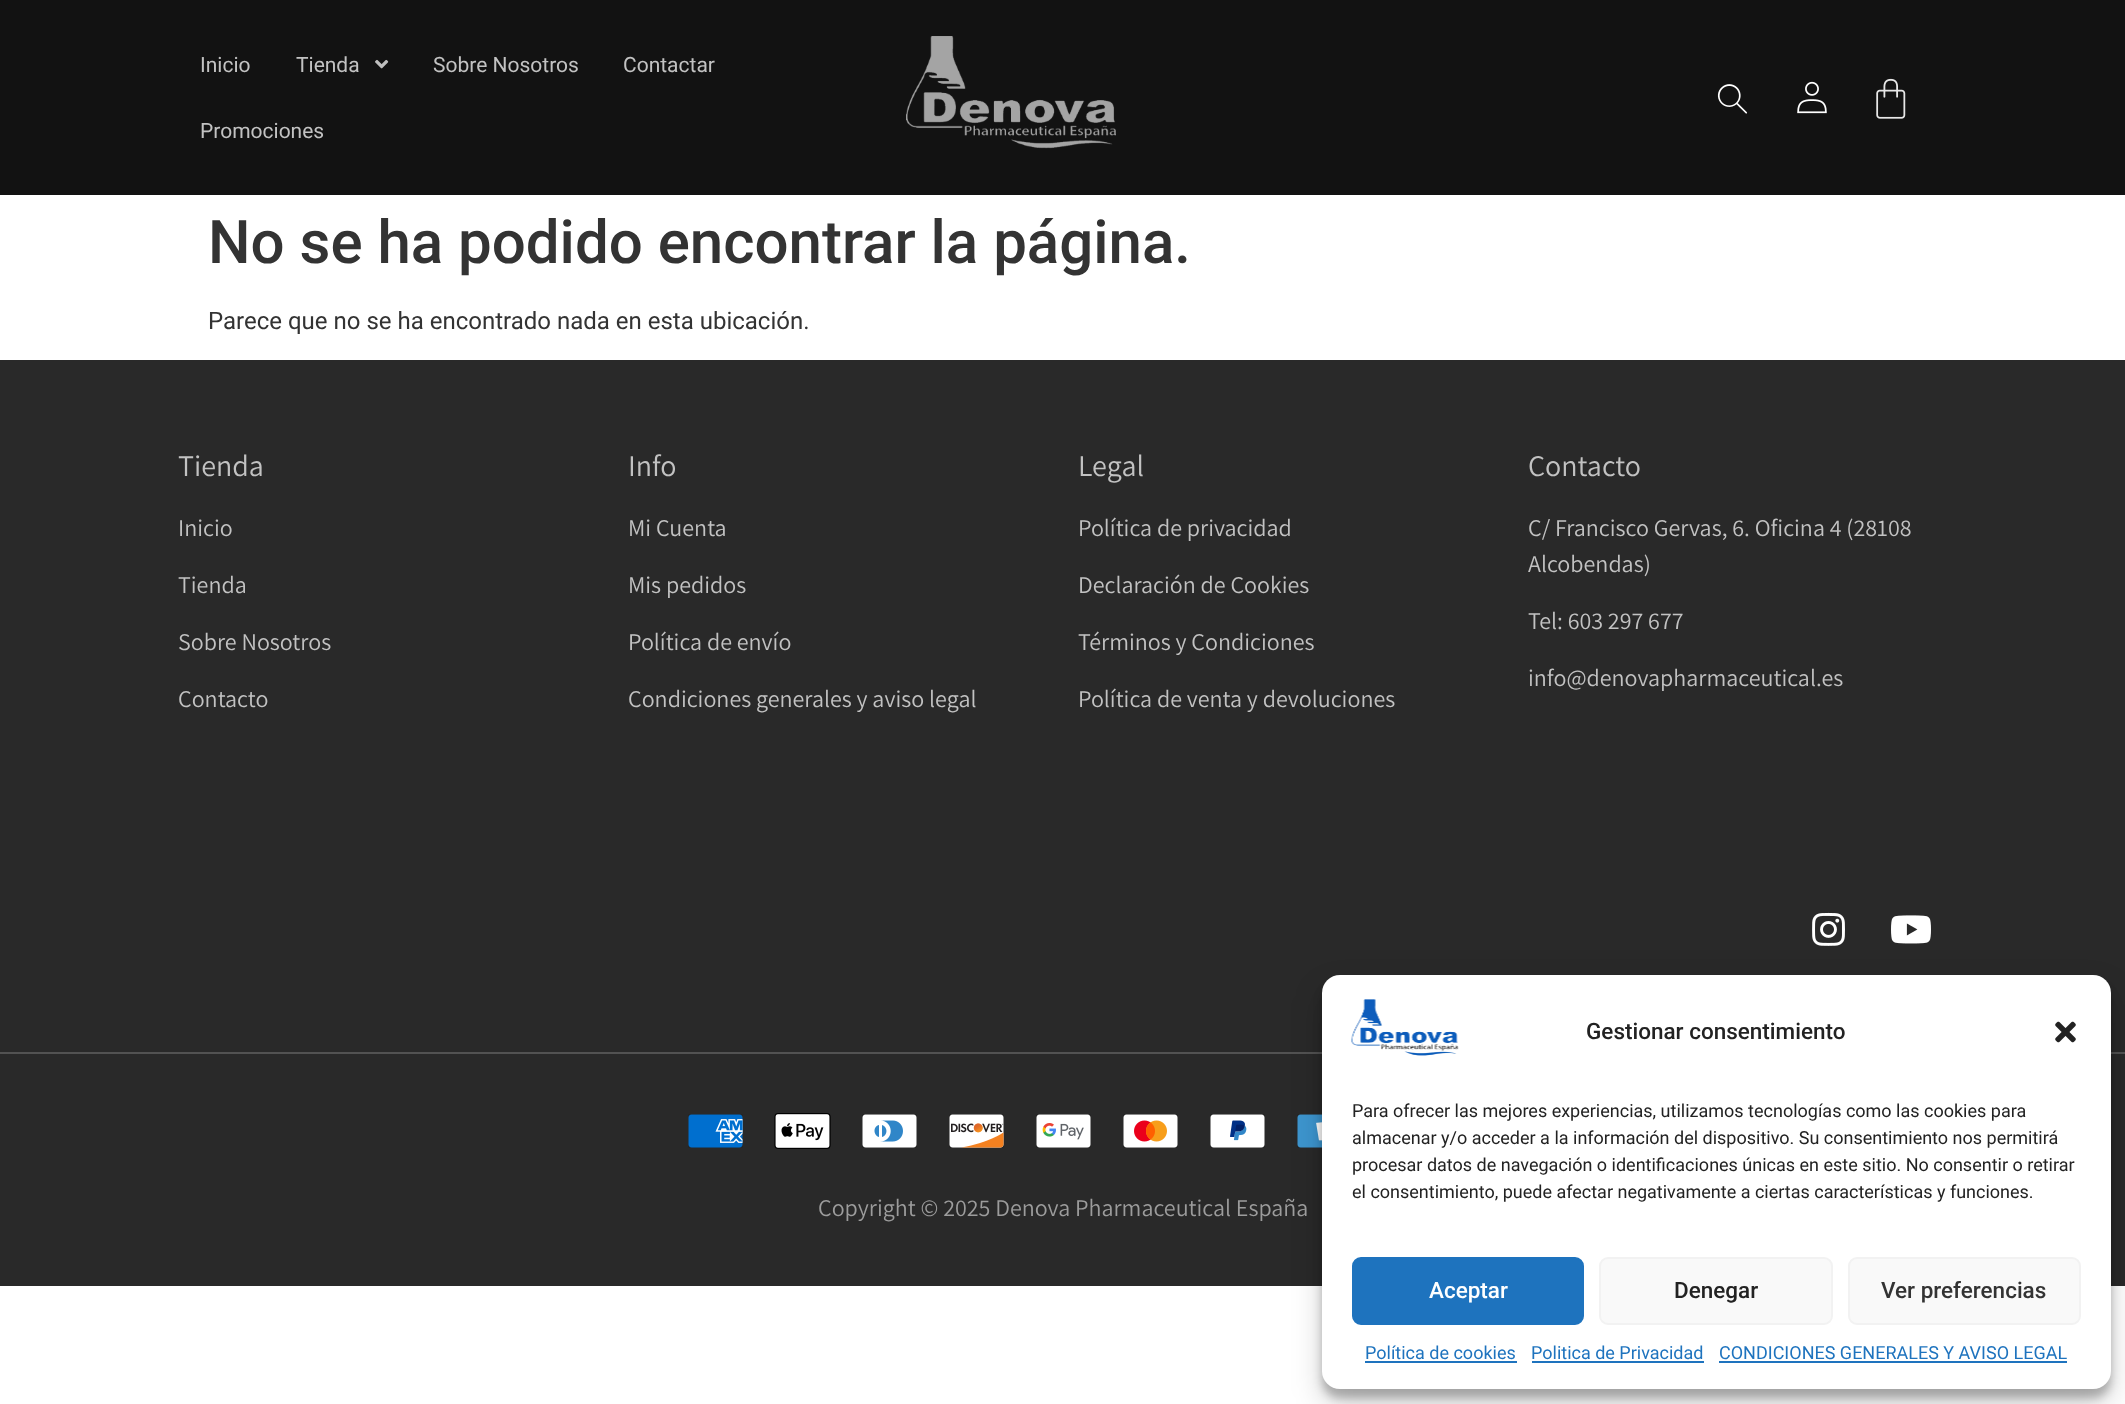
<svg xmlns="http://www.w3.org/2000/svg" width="2125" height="1404">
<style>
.a{font:21px Roboto;fill:#c2c2c2}
.b{font:500 60px Roboto;fill:#333}
.c{font:24px Roboto;fill:#333}
.d{font:30px Assistant;fill:#c2c2c2}
.e{font:24px Assistant;fill:#c2c2c2}
.f{font:24px Assistant;fill:#9c9c9c}
.g{font:500 22.5px Roboto;fill:#222}
.h{font:18px Roboto;fill:#222}
.i{font:500 22.5px Roboto;fill:#fff}
.j{font:500 22.5px Roboto;fill:#333}
.k{font:18px Roboto;fill:#1e73be}
</style>
<rect width="100%" height="100%" fill="#fff"/>
<path fill="#121212" d="M0 0h2125v195H0z"/>
<image href="1.png" x="375" y="59" width="14" height="10"/>
<image href="2.png" x="906" y="36" width="210" height="113"/>
<image href="3.png" x="1717" y="84" width="31" height="30"/>
<image href="4.png" x="1797" y="81" width="30" height="33"/>
<image href="5.png" x="1876" y="78" width="30" height="41"/>
<path fill="#292929" d="M0 360h2125v692H0z"/>
<image href="6.png" x="1812" y="912" width="33" height="34"/>
<image href="7.png" x="1891" y="915" width="40" height="29"/>
<path fill="#292929" d="M0 1054h2125v232H0z"/>
<path fill="#525252" d="M0 1052h2125v2H0z"/>
<image href="8.png" x="688" y="1114" width="55" height="34"/>
<image href="9.png" x="774" y="1113" width="57" height="36"/>
<image href="10.png" x="862" y="1114" width="55" height="34"/>
<image href="11.png" x="949" y="1114" width="55" height="34"/>
<image href="12.png" x="1036" y="1114" width="55" height="34"/>
<image href="13.png" x="1123" y="1114" width="55" height="34"/>
<image href="14.png" x="1210" y="1114" width="55" height="34"/>
<image href="15.png" x="1297" y="1114" width="25" height="34"/>
<rect fill="#0000003b" filter="blur(4.5px)" x="1322" y="984" width="789" height="414" rx="18"/>
<rect fill="#00000030" filter="blur(15px)" x="1322" y="990" width="789" height="414" rx="18"/>
<rect fill="#fff" x="1322" y="975" width="789" height="414" rx="18"/>
<image href="16.png" x="1351" y="999" width="108" height="57"/>
<image href="17.png" x="2055" y="1021" width="21" height="22"/>
<rect fill="#1e73be" stroke="#1e73be" stroke-width="2" x="1353" y="1258" width="230" height="66" rx="8"/>
<rect fill="#f9f9f9" stroke="#f2f2f2" stroke-width="2" x="1600" y="1258" width="232" height="66" rx="8"/>
<rect fill="#f9f9f9" stroke="#f2f2f2" stroke-width="2" x="1849" y="1258" width="231" height="66" rx="8"/>
<path fill="#1e73be" d="M1365 1361h152v2H1365z"/>
<path fill="#1e73be" d="M1532 1361h172v2H1532z"/>
<path fill="#1e73be" d="M1719 1361h348v2H1719z"/>
<text class="a" x="200" y="72">Inicio</text>
<text class="a" x="296" y="72">Tienda</text>
<text class="a" x="433" y="72">Sobre Nosotros</text>
<text class="a" x="623" y="72">Contactar</text>
<text class="a" x="200" y="138">Promociones</text>
<text class="b" x="208" y="263">No se ha podido encontrar la página.</text>
<text class="c" x="208" y="329">Parece que no se ha encontrado nada en esta ubicación.</text>
<text class="d" x="178" y="476">Tienda</text>
<text class="e" x="178" y="536">Inicio</text>
<text class="e" x="178" y="593">Tienda</text>
<text class="e" x="178" y="650">Sobre Nosotros</text>
<text class="e" x="178" y="707">Contacto</text>
<text class="d" x="628" y="476">Info</text>
<text class="e" x="628" y="536">Mi Cuenta</text>
<text class="e" x="628" y="593">Mis pedidos</text>
<text class="e" x="628" y="650">Política de envío</text>
<text class="e" x="628" y="707">Condiciones generales y aviso legal</text>
<text class="d" x="1078" y="476">Legal</text>
<text class="e" x="1078" y="536">Política de privacidad</text>
<text class="e" x="1078" y="593">Declaración de Cookies</text>
<text class="e" x="1078" y="650">Términos y Condiciones</text>
<text class="e" x="1078" y="707">Política de venta y devoluciones</text>
<text class="d" x="1528" y="476">Contacto</text>
<text class="e" x="1528" y="536">C/ Francisco Gervas, 6. Oficina 4 (28108</text>
<text class="e" x="1528" y="572">Alcobendas)</text>
<text class="e" x="1528" y="629">Tel: 603 297 677</text>
<text class="e" x="1528" y="686">info@denovapharmaceutical.es</text>
<text class="f" x="818" y="1216">Copyright © 2025 Denova Pharmaceutical España</text>
<text class="g" x="1586" y="1039">Gestionar consentimiento</text>
<text class="h" x="1352" y="1117">Para ofrecer las mejores experiencias, utilizamos tecnologías como las cookies para</text>
<text class="h" x="1352" y="1144">almacenar y/o acceder a la información del dispositivo. Su consentimiento nos permitirá</text>
<text class="h" x="1352" y="1171">procesar datos de navegación o identificaciones únicas en este sitio. No consentir o retirar</text>
<text class="h" x="1352" y="1198">el consentimiento, puede afectar negativamente a ciertas características y funciones.</text>
<text class="i" x="1429" y="1298">Aceptar</text>
<text class="g" x="1674" y="1298">Denegar</text>
<text class="j" x="1881" y="1298">Ver preferencias</text>
<text class="k" x="1365" y="1359">Política de cookies</text>
<text class="k" x="1531" y="1359">Politica de Privacidad</text>
<text class="k" x="1719" y="1359">CONDICIONES GENERALES Y AVISO LEGAL</text>
</svg>
